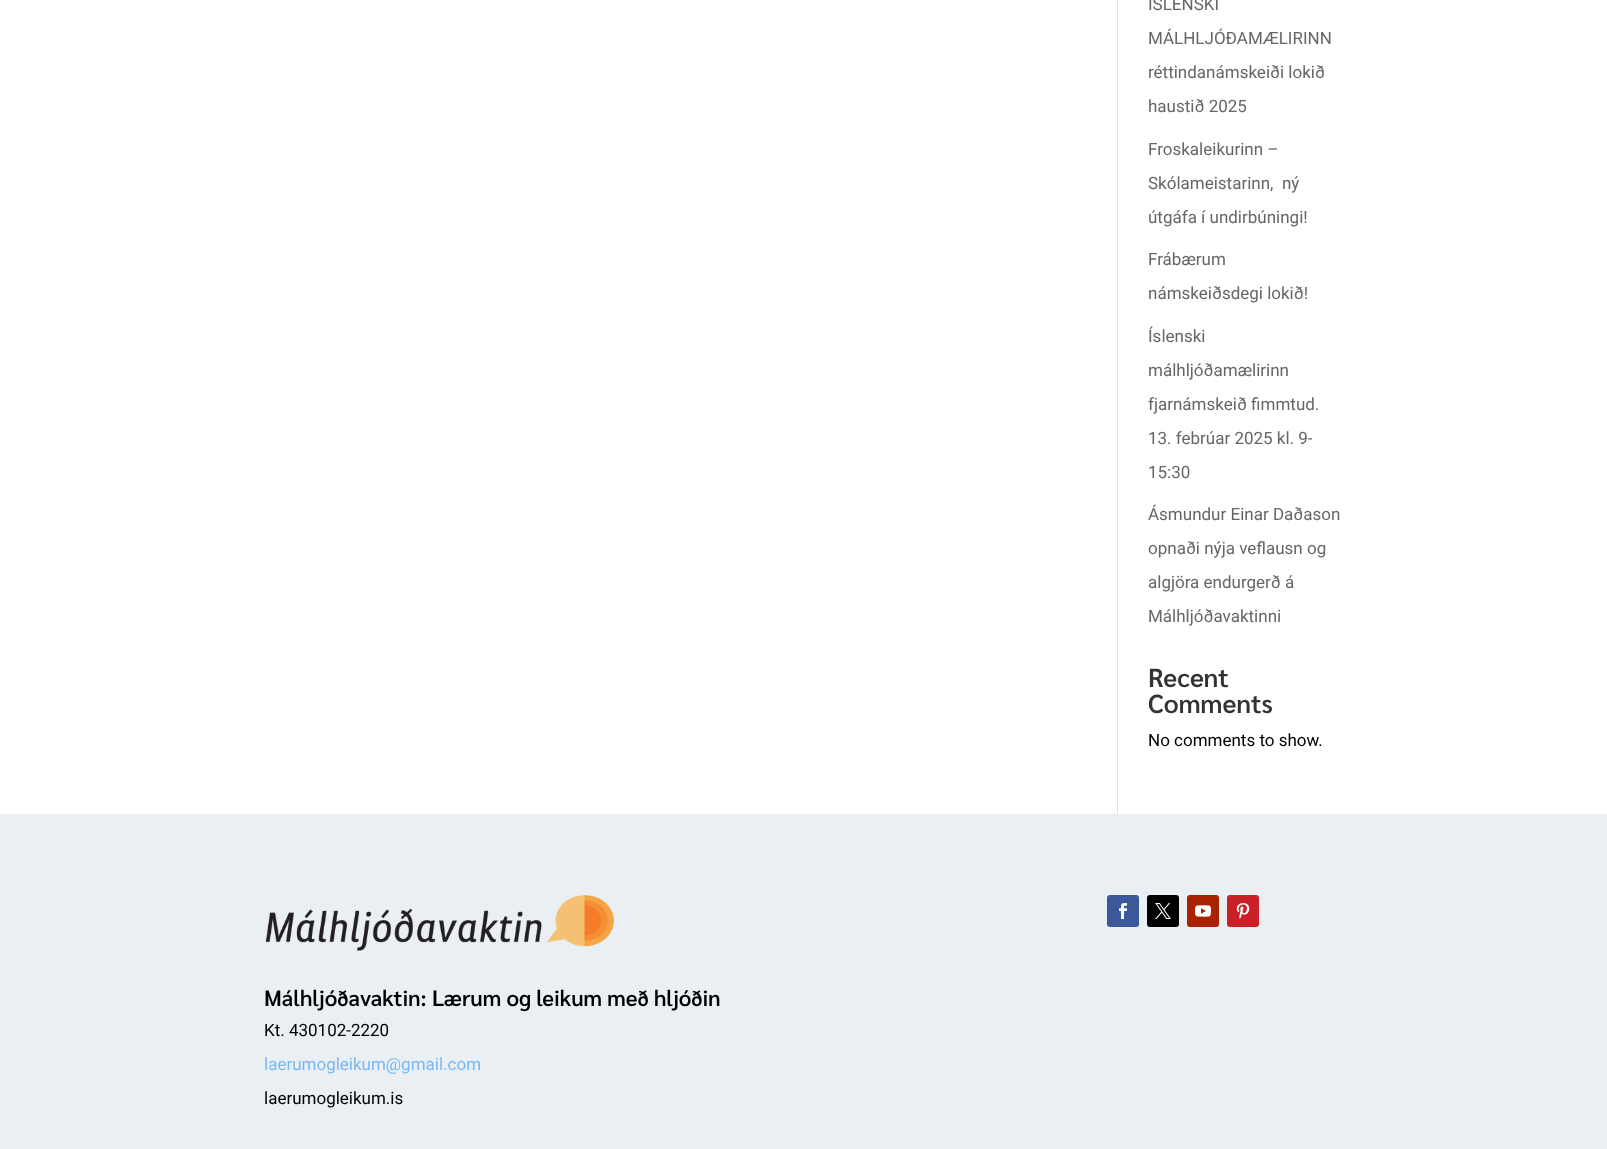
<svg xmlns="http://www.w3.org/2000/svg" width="1607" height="1149">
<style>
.a{font:17px Roboto;fill:#666}
.b{font:600 26px Sarabun;fill:#333}
.c{font:17px Roboto;fill:#000}
.d{font:600 22px Sarabun;fill:#000}
.e{font:17px Roboto;fill:#77b9f2}
</style>
<rect width="100%" height="100%" fill="#fff"/>
<path fill="#e2e2e2" d="M1117 0h1v814H1117z"/>
<path fill="#e9eff2" d="M0 814h1607v335H0z"/>
<rect fill="#3b5998" x="1107" y="895" width="32" height="32" rx="3"/>
<image href="1.png" x="1119" y="903" width="8" height="16"/>
<rect fill="#000" x="1147" y="895" width="32" height="32" rx="3"/>
<image href="2.png" x="1155" y="903" width="16" height="16"/>
<rect fill="#a82400" x="1187" y="895" width="32" height="32" rx="3"/>
<image href="3.png" x="1195" y="905" width="16" height="12"/>
<rect fill="#cb2027" x="1227" y="895" width="32" height="32" rx="3"/>
<image href="4.png" x="1236" y="903" width="14" height="16"/>
<image href="5.png" x="265" y="895" width="349" height="56"/>
<text class="a" x="1148" y="10">ÍSLENSKI</text>
<text class="a" x="1148" y="44">MÁLHLJÓÐAMÆLIRINN</text>
<text class="a" x="1148" y="78">réttindanámskeiði lokið</text>
<text class="a" x="1148" y="112">haustið 2025</text>
<text class="a" x="1148" y="155">Froskaleikurinn –</text>
<text class="a" xml:space="preserve" x="1148" y="189">Skólameistarinn,  ný</text>
<text class="a" x="1148" y="223">útgáfa í undirbúningi!</text>
<text class="a" x="1148" y="265">Frábærum</text>
<text class="a" x="1148" y="299">námskeiðsdegi lokið!</text>
<text class="a" x="1148" y="342">Íslenski</text>
<text class="a" x="1148" y="376">málhljóðamælirinn</text>
<text class="a" x="1148" y="410">fjarnámskeið fimmtud.</text>
<text class="a" x="1148" y="444">13. febrúar 2025 kl. 9-</text>
<text class="a" x="1148" y="478">15:30</text>
<text class="a" x="1148" y="520">Ásmundur Einar Daðason</text>
<text class="a" x="1148" y="554">opnaði nýja veflausn og</text>
<text class="a" x="1148" y="588">algjöra endurgerð á</text>
<text class="a" x="1148" y="622">Málhljóðavaktinni</text>
<text class="b" x="1148" y="687">Recent</text>
<text class="b" x="1148" y="713">Comments</text>
<text class="c" x="1148" y="746">No comments to show.</text>
<text class="d" x="264" y="1006">Málhljóðavaktin: Lærum og leikum með hljóðin</text>
<text class="c" x="264" y="1036">Kt. 430102-2220</text>
<text class="e" x="264" y="1070">laerumogleikum@gmail.com</text>
<text class="c" x="264" y="1104">laerumogleikum.is</text>
</svg>
